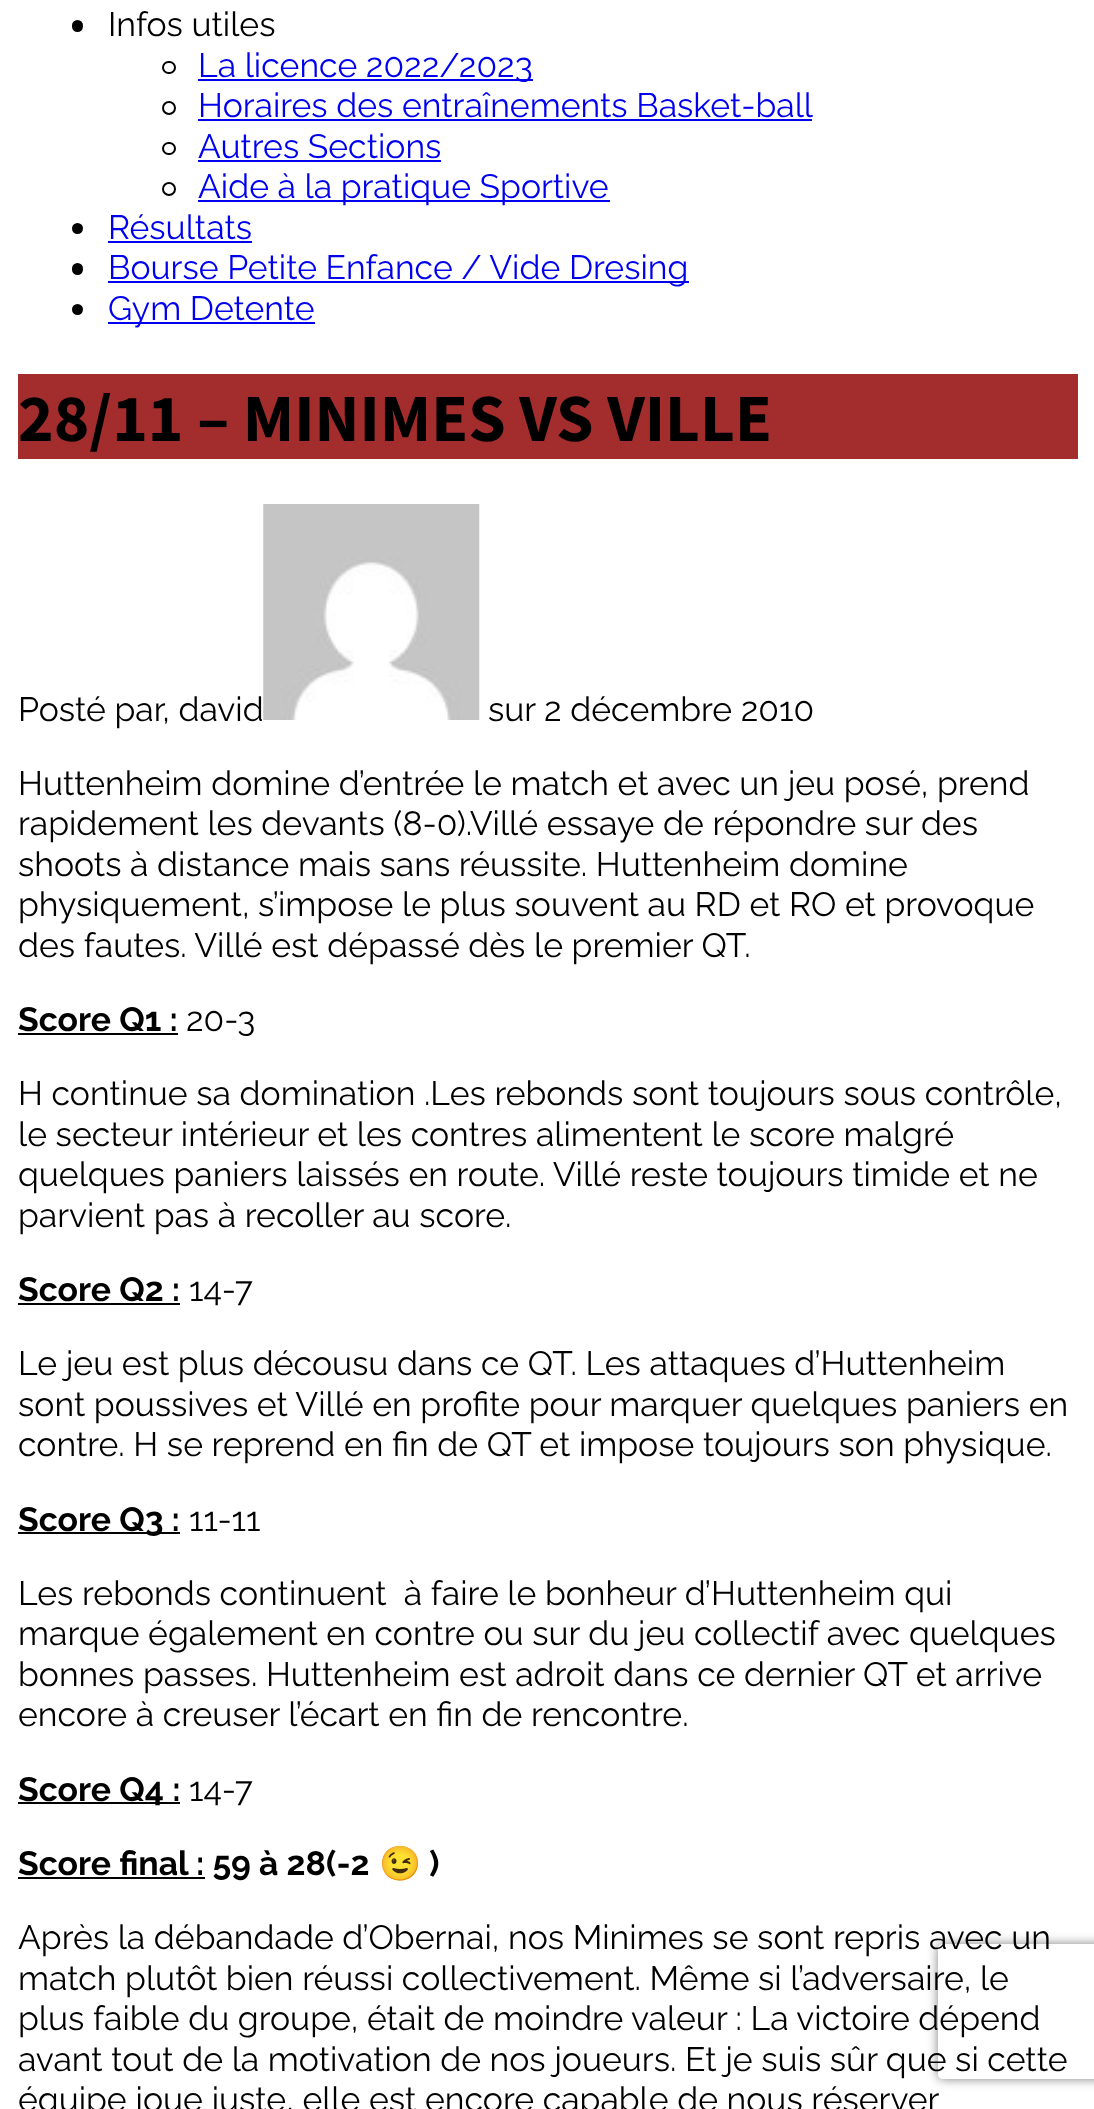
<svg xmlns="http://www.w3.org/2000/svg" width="1094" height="2109">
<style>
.a{font:33.75px Raleway;fill:#000}
.b{font:33.75px Raleway;fill:#00e}
.c{font:bold 67.5px Source Sans Pro;fill:#000}
.d{font:bold 33.75px Raleway;fill:#000}
.e{font:bold 33.75px Noto Color Emoji;fill:#000}
</style>
<defs>
<clipPath id="clip1"><path d="M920 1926h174v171h-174zm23 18h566c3 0 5 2 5 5v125c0 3-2 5-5 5h-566c-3 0-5-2-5-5v-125c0-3 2-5 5-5z" clip-rule="evenodd"/></clipPath>
</defs>
<rect width="100%" height="100%" fill="#fff"/>
<rect fill="#000" x="72" y="20" width="11" height="12" rx="5.5"/>
<rect fill="none" stroke="#000" stroke-width="2" x="163" y="62" width="12" height="11" rx="5.5"/>
<path fill="#00e" d="M198 79h335v2H198z"/>
<circle fill="none" stroke="#000" stroke-width="2" cx="169" cy="108" r="6"/>
<path fill="#00e" d="M198 119h614v2H198z"/>
<rect fill="none" stroke="#000" stroke-width="2" x="163" y="143" width="12" height="11" rx="5.5"/>
<path fill="#00e" d="M198 160h243v2H198z"/>
<circle fill="none" stroke="#000" stroke-width="2" cx="169" cy="189" r="6"/>
<path fill="#00e" d="M198 200h412v2H198z"/>
<circle fill="#000" cx="77.5" cy="228.5" r="5.5"/>
<path fill="#00e" d="M108 241h144v2H108z"/>
<rect fill="#000" x="72" y="263" width="11" height="12" rx="5.5"/>
<path fill="#00e" d="M108 281h581v2H108z"/>
<circle fill="#000" cx="77.5" cy="309.5" r="5.5"/>
<path fill="#00e" d="M108 322h207v2H108z"/>
<path fill="#a32c2c" d="M18 374h1060v85H18z"/>
<image href="1.png" x="263" y="504" width="217" height="216"/>
<path fill="#000" d="M18 1033h160v2H18z"/>
<path fill="#000" d="M18 1303h162v2H18z"/>
<path fill="#000" d="M18 1532h162v2H18z"/>
<path fill="#000" d="M18 1802h162v2H18z"/>
<path fill="#000" d="M18 1877h187v2H18z"/>
<g clip-path="url(#clip1)">
<rect fill="#808080" filter="blur(5.5px)" x="938" y="1944" width="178" height="135" rx="5"/>
</g>
<text class="a" x="108" y="36">Infos utiles</text>
<text class="b" x="198" y="77">La licence 2022/2023</text>
<text class="b" x="198" y="117">Horaires des entraînements Basket-ball</text>
<text class="b" x="198" y="158">Autres Sections</text>
<text class="b" x="198" y="198">Aide à la pratique Sportive</text>
<text class="b" x="108" y="239">Résultats</text>
<text class="b" x="108" y="279">Bourse Petite Enfance / Vide Dresing</text>
<text class="b" x="108" y="320">Gym Detente</text>
<text class="c" x="18" y="441">28/11 – MINIMES VS VILLE</text>
<text class="a" x="18" y="721">Posté par, david</text>
<text class="a" x="488" y="721">sur 2 décembre 2010</text>
<text class="a" x="18" y="795">Huttenheim domine d’entrée le match et avec un jeu posé, prend</text>
<text class="a" x="18" y="835">rapidement les devants (8-0).Villé essaye de répondre sur des</text>
<text class="a" x="18" y="876">shoots à distance mais sans réussite. Huttenheim domine</text>
<text class="a" x="18" y="916">physiquement, s’impose le plus souvent au RD et RO et provoque</text>
<text class="a" x="18" y="957">des fautes. Villé est dépassé dès le premier QT.</text>
<text class="d" x="18" y="1031">Score Q1 :</text>
<text class="a" x="186" y="1031">20-3</text>
<text class="a" x="18" y="1105">H continue sa domination .Les rebonds sont toujours sous contrôle,</text>
<text class="a" x="18" y="1146">le secteur intérieur et les contres alimentent le score malgré</text>
<text class="a" x="18" y="1186">quelques paniers laissés en route. Villé reste toujours timide et ne</text>
<text class="a" x="18" y="1227">parvient pas à recoller au score.</text>
<text class="d" x="18" y="1301">Score Q2 :</text>
<text class="a" x="189" y="1301">14-7</text>
<text class="a" x="18" y="1375">Le jeu est plus décousu dans ce QT. Les attaques d’Huttenheim</text>
<text class="a" x="18" y="1416">sont poussives et Villé en profite pour marquer quelques paniers en</text>
<text class="a" x="18" y="1456">contre. H se reprend en fin de QT et impose toujours son physique.</text>
<text class="d" x="18" y="1531">Score Q3 :</text>
<text class="a" x="189" y="1531">11-11</text>
<text class="a" xml:space="preserve" x="18" y="1605">Les rebonds continuent  à faire le bonheur d’Huttenheim qui</text>
<text class="a" x="18" y="1645">marque également en contre ou sur du jeu collectif avec quelques</text>
<text class="a" x="18" y="1686">bonnes passes. Huttenheim est adroit dans ce dernier QT et arrive</text>
<text class="a" x="18" y="1726">encore à creuser l’écart en fin de rencontre.</text>
<text class="d" x="18" y="1801">Score Q4 :</text>
<text class="a" x="189" y="1801">14-7</text>
<text class="d" x="18" y="1875">Score final : 59 à 28(-2</text>
<text class="e" x="379" y="1875">😉</text>
<text class="d" x="429" y="1875">)</text>
<text class="a" x="18" y="1949">Après la débandade d’Obernai, nos Minimes se sont repris avec un</text>
<text class="a" x="18" y="1990">match plutôt bien réussi collectivement. Même si l’adversaire, le</text>
<text class="a" x="18" y="2030">plus faible du groupe, était de moindre valeur : La victoire dépend</text>
<text class="a" x="18" y="2071">avant tout de la motivation de nos joueurs. Et je suis sûr que si cette</text>
<text class="a" x="18" y="2111">équipe joue juste, elle est encore capable de nous réserver</text>
</svg>
